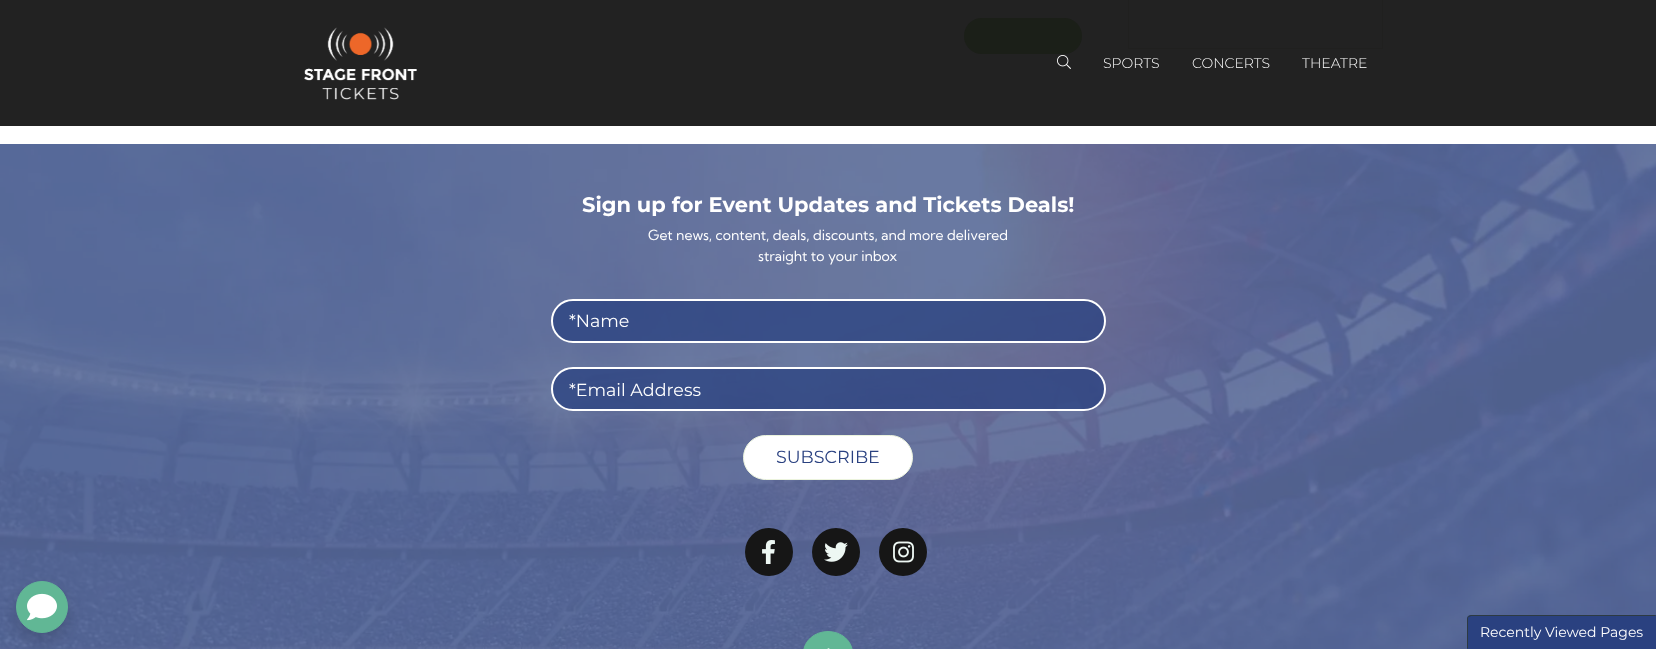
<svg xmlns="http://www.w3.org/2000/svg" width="1656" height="649">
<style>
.a{font:300 14px Montserrat;fill:#fff}
.b{font:bold 21px Montserrat;fill:#fff}
.c{font:14px Kumbh Sans;fill:#fff}
.d{font:17.5px Montserrat;fill:#fff}
.e{font:17.5px Montserrat;fill:#2a4180}
.f{font:14px Montserrat;fill:#fff}
</style>
<rect width="100%" height="100%" fill="#fff"/>
<path fill="#222" d="M0 0h1656v126H0z"/>
<image href="1.png" x="304" y="27" width="113" height="73"/>
<image href="2.png" x="1057" y="55" width="14" height="14"/>
<rect fill="#1b1f18" x="964" y="18" width="118" height="36" rx="18"/>
<path fill="none" stroke="#20201f" d="M1128.5 -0.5h254v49H1128.5z"/>
<image href="3.png" x="0" y="144" width="1656" height="505"/>
<rect fill="#2a4180bf" stroke="#fff" stroke-width="2" x="552" y="300" width="553" height="42" rx="21"/>
<rect fill="#2a4180bf" stroke="#fff" stroke-width="2" x="552" y="368" width="553" height="42" rx="21"/>
<rect fill="#fff" stroke="#ebf3dd" x="743.5" y="435.5" width="169" height="44" rx="22"/>
<circle fill="#161616" cx="769" cy="552" r="24"/>
<image href="4.png" x="762" y="540" width="13" height="24"/>
<circle fill="#161616" cx="836" cy="552" r="24"/>
<image href="5.png" x="824" y="542" width="24" height="20"/>
<circle fill="#161616" cx="903" cy="552" r="24"/>
<image href="6.png" x="893" y="541" width="21" height="22"/>
<rect fill="#00000026" filter="blur(8px)" x="16" y="589" width="52" height="52" rx="26"/>
<circle fill="#61b795" stroke="#61b795" cx="42" cy="607" r="25.5"/>
<image href="7.png" x="27" y="593" width="30" height="28"/>
<rect fill="#61b795" stroke="#61b795" x="803.5" y="631.5" width="49" height="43" rx="24.5"/>
<image href="8.png" x="827" y="648" width="3" height="1"/>
<path fill="#2a4180" d="M1471 615h185v34h-189v-30c0-2 2-4 4-4z"/>
<path fill="#2d3a42" d="M1471 615l-3 1l1 1l2-1h184l1-1z"/>
<path fill="#2d3a42" d="M1467 649l1-1v-29c0-1 0-2 1-2l-1-1c-.5 1-1 2-1 3z"/>
<text class="a" x="1103" y="68">SPORTS</text>
<text class="a" x="1192" y="68">CONCERTS</text>
<text class="a" x="1302" y="68">THEATRE</text>
<text class="b" x="582" y="212">Sign up for Event Updates and Tickets Deals!</text>
<text class="c" x="648" y="240">Get news, content, deals, discounts, and more delivered</text>
<text class="c" x="758" y="261">straight to your inbox</text>
<text class="d" x="569" y="327">*Name</text>
<text class="d" x="569" y="396">*Email Address</text>
<text class="e" x="776" y="463">SUBSCRIBE</text>
<text class="f" x="1480" y="637">Recently Viewed Pages</text>
</svg>
